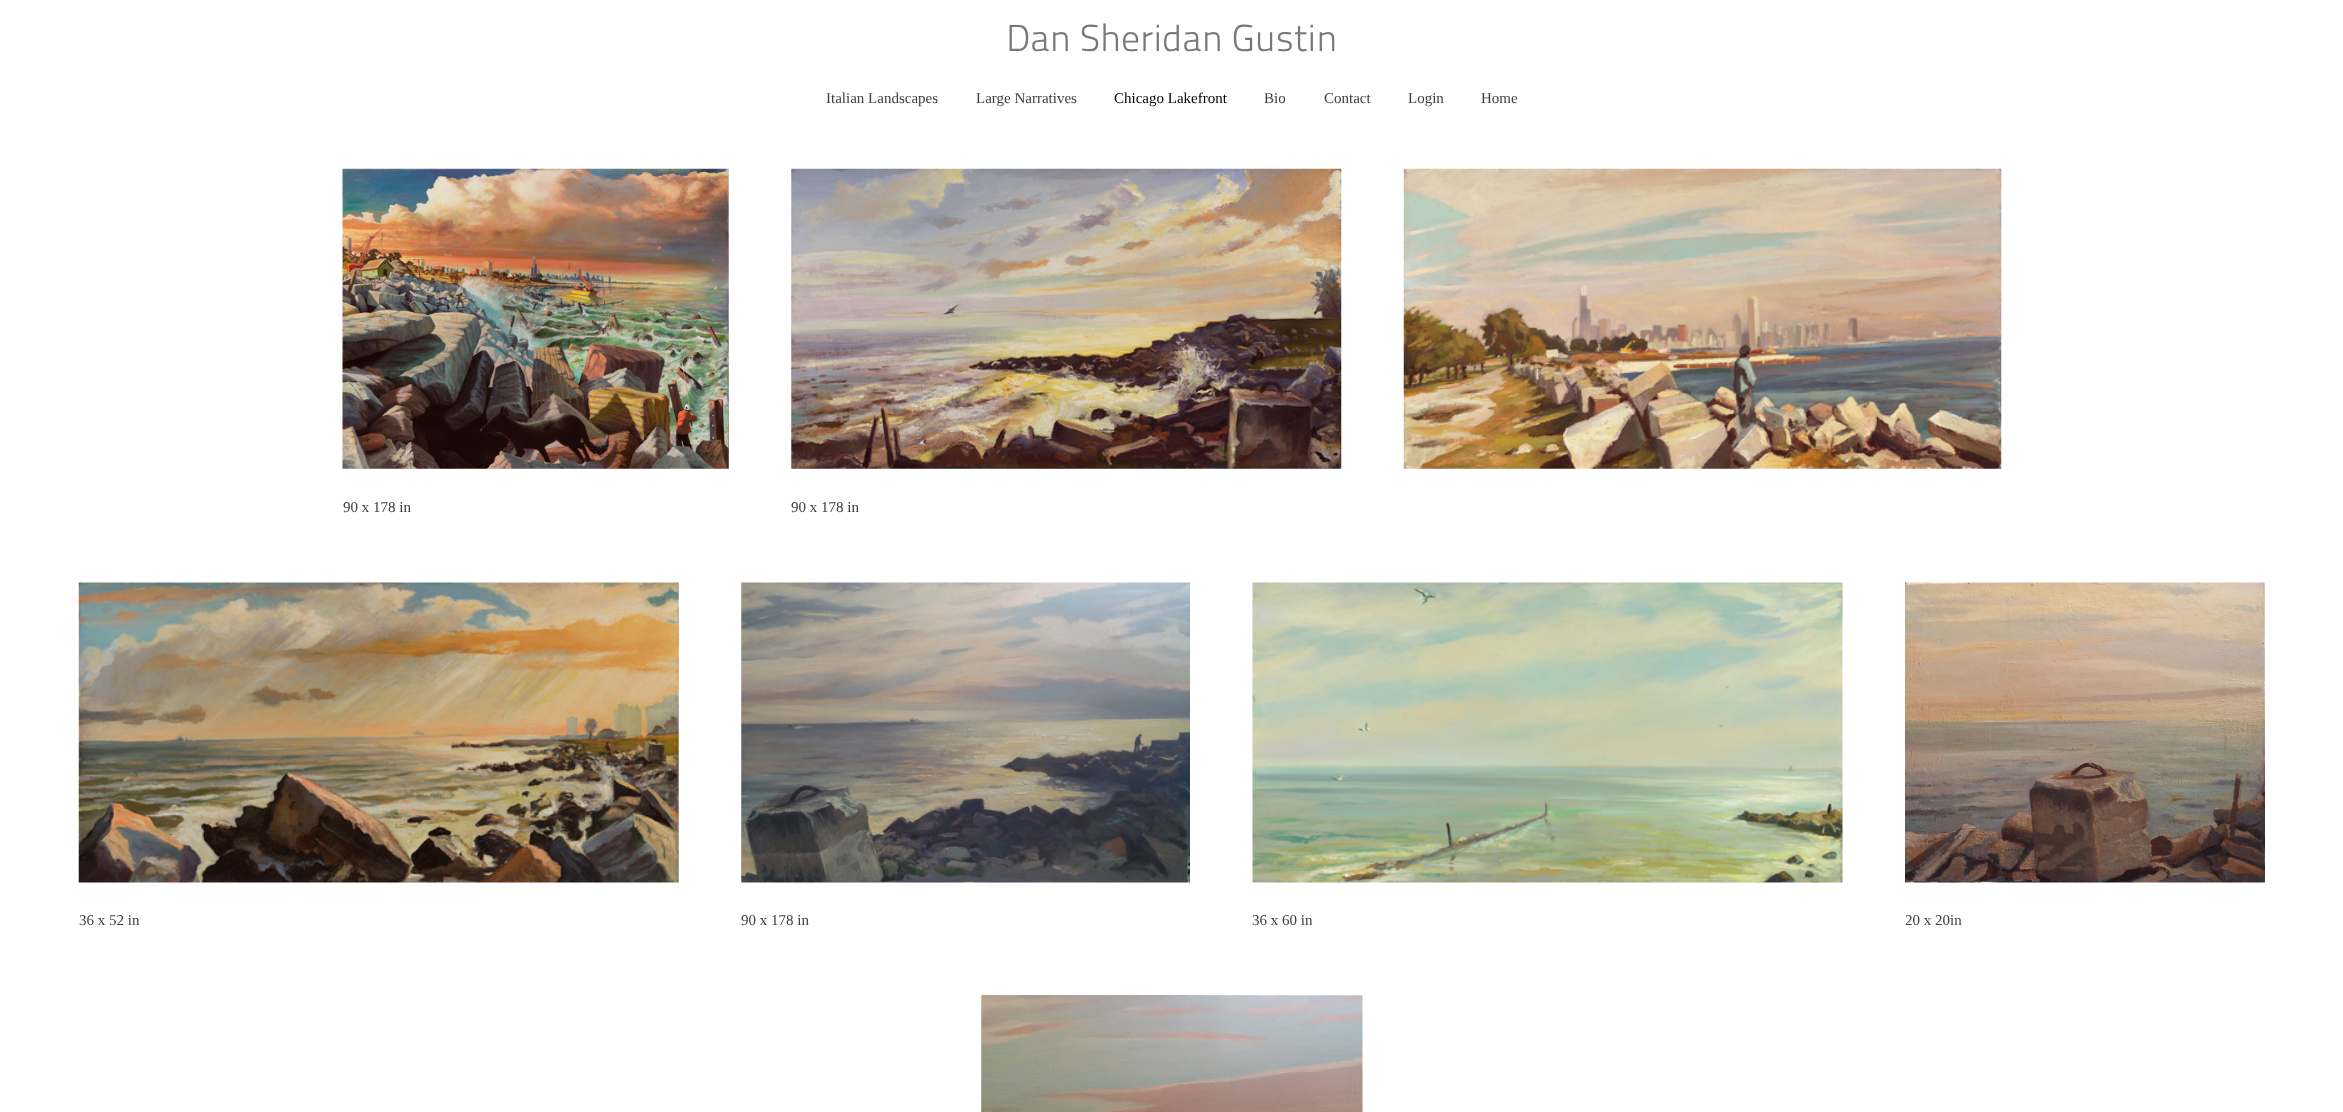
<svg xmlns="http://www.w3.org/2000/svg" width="2343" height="1112">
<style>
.a{font:300 37.5px 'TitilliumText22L';fill:#787878}
.b{font:15px Liberation Serif;fill:#3d3d3d}
.c{font:15px Liberation Serif;fill:#000}
</style>
<rect width="100%" height="100%" fill="#fff"/>
<image href="1.png" x="1403" y="168" width="599" height="301"/>
<image href="2.png" x="342" y="168" width="387" height="301"/>
<image href="3.png" x="791" y="168" width="551" height="301"/>
<image href="4.png" x="78" y="582" width="601" height="301"/>
<image href="5.png" x="741" y="582" width="449" height="301"/>
<image href="6.png" x="1252" y="582" width="591" height="301"/>
<image href="7.png" x="1905" y="582" width="360" height="301"/>
<image href="8.png" x="981" y="995" width="382" height="117"/>
<text class="a" x="1006" y="51">Dan Sheridan Gustin</text>
<text class="b" x="826" y="103">Italian Landscapes</text>
<text class="b" x="976" y="103">Large Narratives</text>
<text class="c" x="1114" y="103">Chicago Lakefront</text>
<text class="b" x="1264" y="103">Bio</text>
<text class="b" x="1324" y="103">Contact</text>
<text class="b" x="1408" y="103">Login</text>
<text class="b" x="1481" y="103">Home</text>
<text class="b" x="343" y="512">90 x 178 in</text>
<text class="b" x="791" y="512">90 x 178 in</text>
<text class="b" x="79" y="925">36 x 52 in</text>
<text class="b" x="741" y="925">90 x 178 in</text>
<text class="b" x="1252" y="925">36 x 60 in</text>
<text class="b" x="1905" y="925">20 x 20in</text>
</svg>
